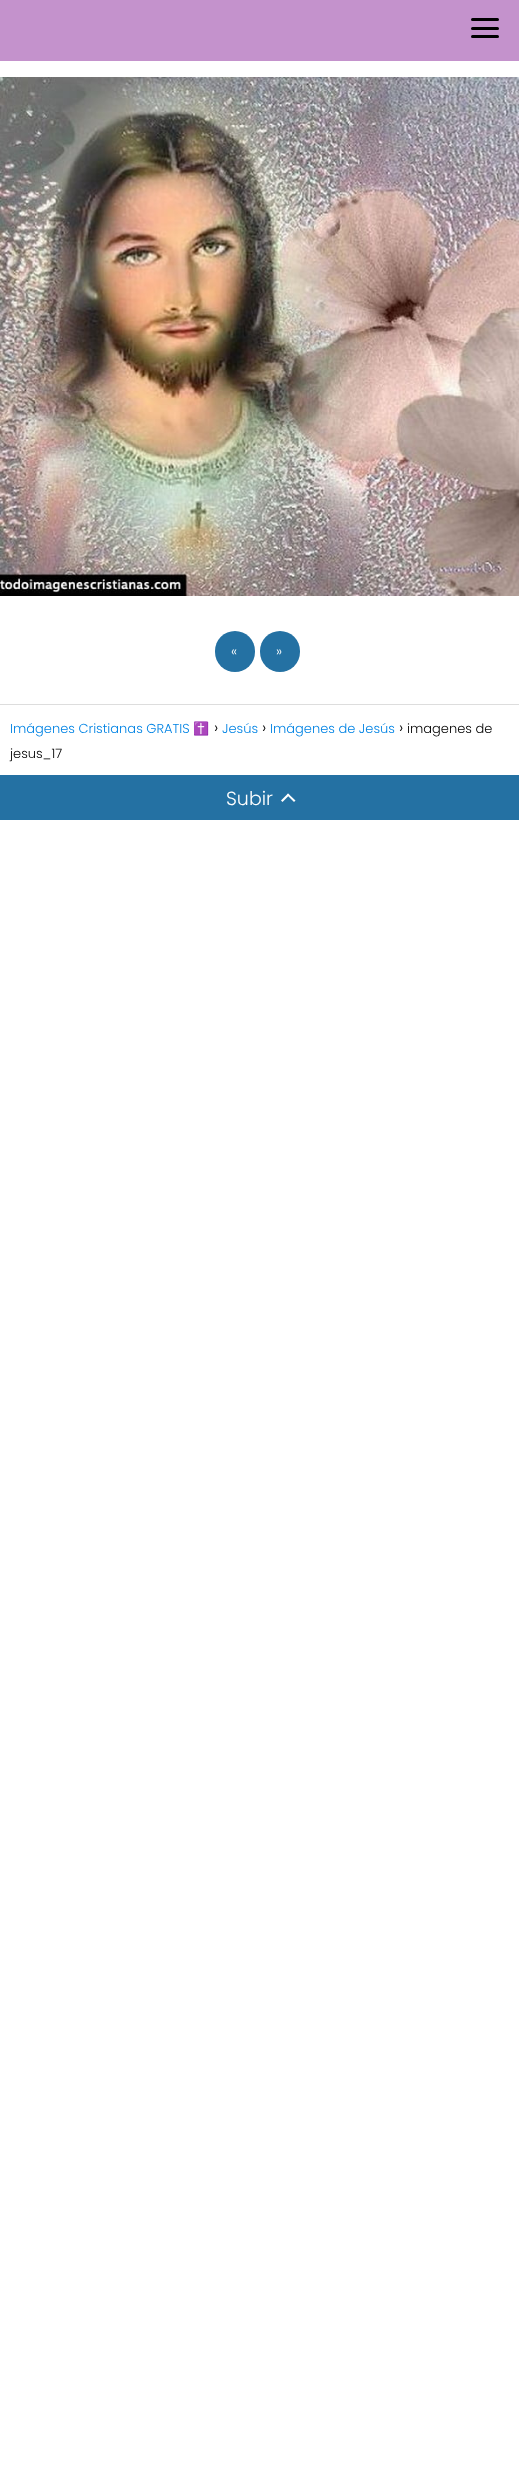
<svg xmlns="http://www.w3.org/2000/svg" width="519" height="2473">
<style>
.a{font:300 14px Poppins;fill:#fff}
.b{font:300 13px Poppins;fill:#0183e4}
.c{font:13px Noto Color Emoji;fill:#0183e4}
.d{font:300 16px Poppins;fill:#000}
.e{font:300 13px Poppins;fill:#000}
.f{font:300 19px Poppins;fill:#fff}
</style>
<rect width="100%" height="100%" fill="#fff"/>
<path fill="#c492cc" d="M0 0h519v61H0z"/>
<rect fill="#000" x="471" y="18" width="28" height="3" rx="1.5"/>
<rect fill="#000" x="471" y="27" width="28" height="3" rx="1.5"/>
<rect fill="#000" x="471" y="35" width="28" height="3" rx="1.5"/>
<image href="1.png" x="0" y="77" width="519" height="519"/>
<rect fill="#2471a3" x="215" y="631" width="40" height="41" rx="20"/>
<rect fill="#2471a3" x="260" y="631" width="40" height="41" rx="20"/>
<path fill="#ddd" d="M0 704h519v1H0z"/>
<path fill="#2471a3" d="M0 775h519v45H0z"/>
<path fill="#fff" d="M282.5 802l-1.5-1.5l7-7l1.5 1.5z"/>
<path fill="#fff" d="M294 802l-7-7l1-1.5l7.5 7z"/>
<text class="a" x="231" y="656">«</text>
<text class="a" x="276" y="656">»</text>
<text class="b" x="10" y="733">Imágenes Cristianas GRATIS</text>
<text class="c" x="193" y="733">✝️</text>
<text class="d" x="214" y="733">›</text>
<text class="b" x="222" y="733">Jesús</text>
<text class="d" x="262" y="733">›</text>
<text class="b" x="270" y="733">Imágenes de Jesús</text>
<text class="d" x="399" y="733">›</text>
<text class="e" x="407" y="733">imagenes de</text>
<text class="e" x="10" y="758">jesus_17</text>
<text class="f" x="226" y="805">Subir</text>
</svg>
